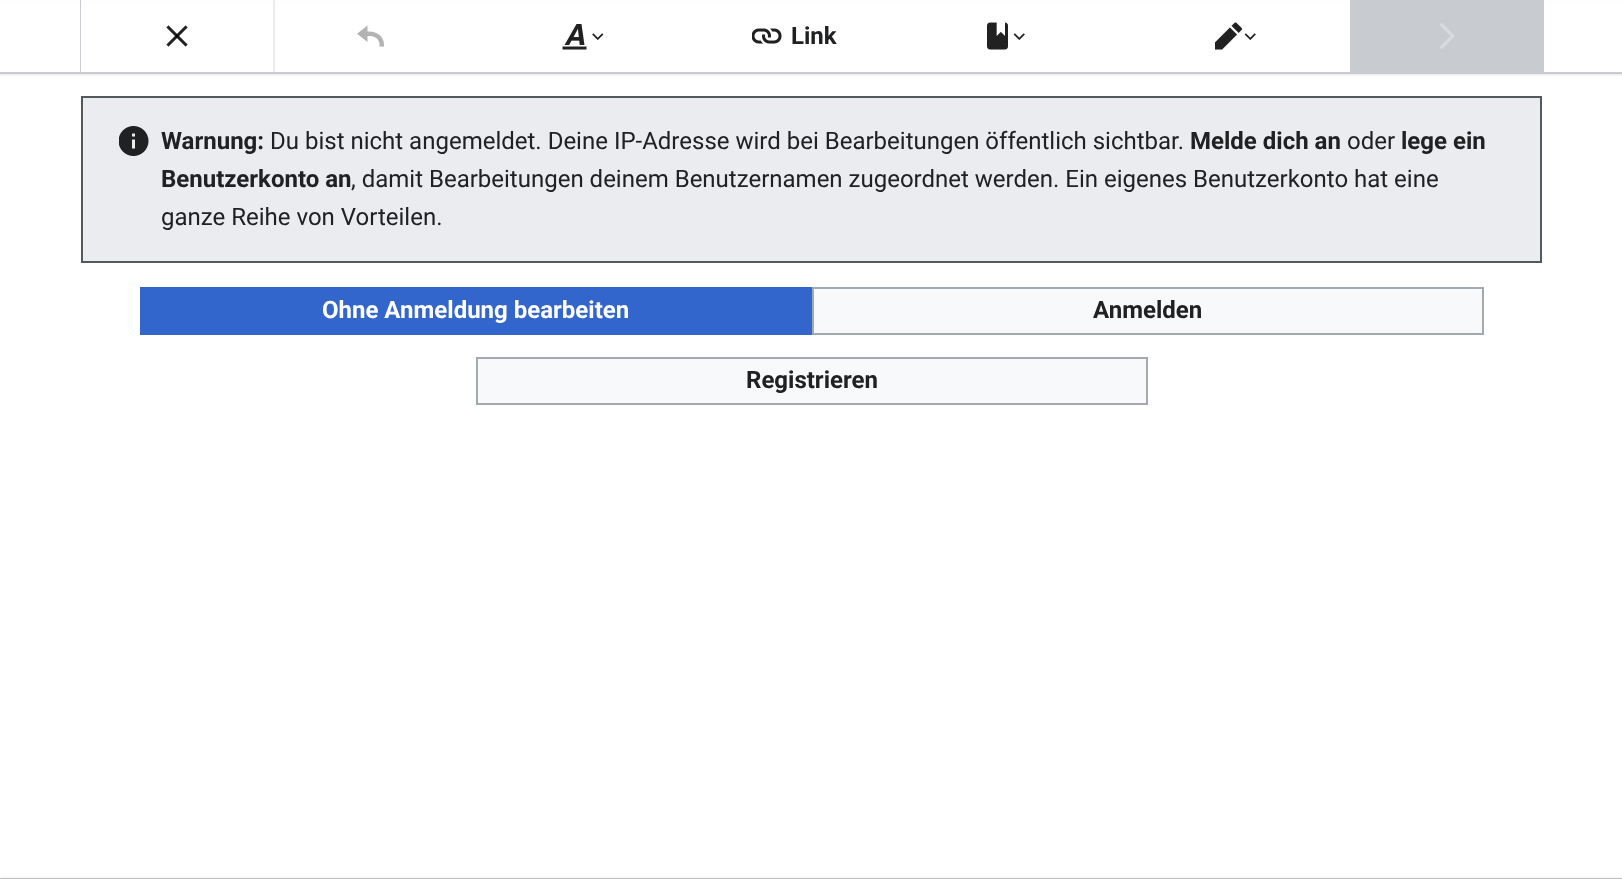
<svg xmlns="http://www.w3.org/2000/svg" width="1622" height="879">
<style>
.a{font:bold 24px Roboto;fill:#202122}
.b{font:24px Roboto;fill:#202122}
.c{font:bold 24px Roboto;fill:#fff}
</style>
<rect width="100%" height="100%" fill="#fff"/>
<path fill="#0000001a" filter="blur(1px)" d="M0 2h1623v73H0z"/>
<path fill="#fff" d="M0 1h1622v71H0z"/>
<path fill="#c8ccd1" d="M0 72h1622v2H0z"/>
<path fill="none" stroke="#c8ccd1" stroke-width="2" d="M81 -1h1462v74H81z"/>
<path fill="#fff" d="M81 0h1v72H81z"/>
<path fill="#eaecf0" d="M273 0h2v72H273z"/>
<image href="1.png" x="166" y="25" width="22" height="22"/>
<image href="2.png" x="357" y="25" width="27" height="22"/>
<image href="3.png" x="562" y="24" width="25" height="26"/>
<image href="4.png" x="592" y="33" width="12" height="7"/>
<image href="5.png" x="752" y="28" width="30" height="16"/>
<image href="6.png" x="987" y="22" width="21" height="28"/>
<image href="7.png" x="1013" y="33" width="12" height="7"/>
<image href="8.png" x="1215" y="22" width="27" height="28"/>
<image href="7.png" x="1244" y="33" width="12" height="7"/>
<path fill="#c8ccd1" d="M1350 0h192v72H1350z"/>
<path fill="#d9dbdf" d="M1441.5 22.5l-2 2.5l11 11l-11 11l2 2.5l13.5-13.5z"/>
<path fill="#eaecf0" stroke="#54595d" stroke-width="2" d="M82 97h1459v165H82z"/>
<image href="9.png" x="119" y="126" width="30" height="30"/>
<path fill="#36c" d="M140 287h672v48H140z"/>
<path fill="#f8f9fa" stroke="#a2a9b1" stroke-width="2" d="M813 288h670v46H813z"/>
<path fill="#f8f9fa" stroke="#a2a9b1" stroke-width="2" d="M477 358h670v46H477z"/>
<path fill="#c8ccd1" d="M0 878h1622v1H0z"/>
<path fill="#0000001a" filter="blur(1px)" d="M0 878h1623v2H0z"/>
<text class="a" x="791" y="44">Link</text>
<text class="a" x="161" y="149">Warnung:</text>
<text class="b" x="270" y="149">Du bist nicht angemeldet. Deine IP-Adresse wird bei Bearbeitungen öffentlich sichtbar.</text>
<text class="a" x="1190" y="149">Melde dich an</text>
<text class="b" x="1347" y="149">oder</text>
<text class="a" x="1401" y="149">lege ein</text>
<text class="a" x="161" y="187">Benutzerkonto an</text>
<text class="b" x="351" y="187">, damit Bearbeitungen deinem Benutzernamen zugeordnet werden. Ein eigenes Benutzerkonto hat eine</text>
<text class="b" x="161" y="225">ganze Reihe von Vorteilen.</text>
<text class="c" x="322" y="318">Ohne Anmeldung bearbeiten</text>
<text class="a" x="1093" y="318">Anmelden</text>
<text class="a" x="746" y="388">Registrieren</text>
</svg>
